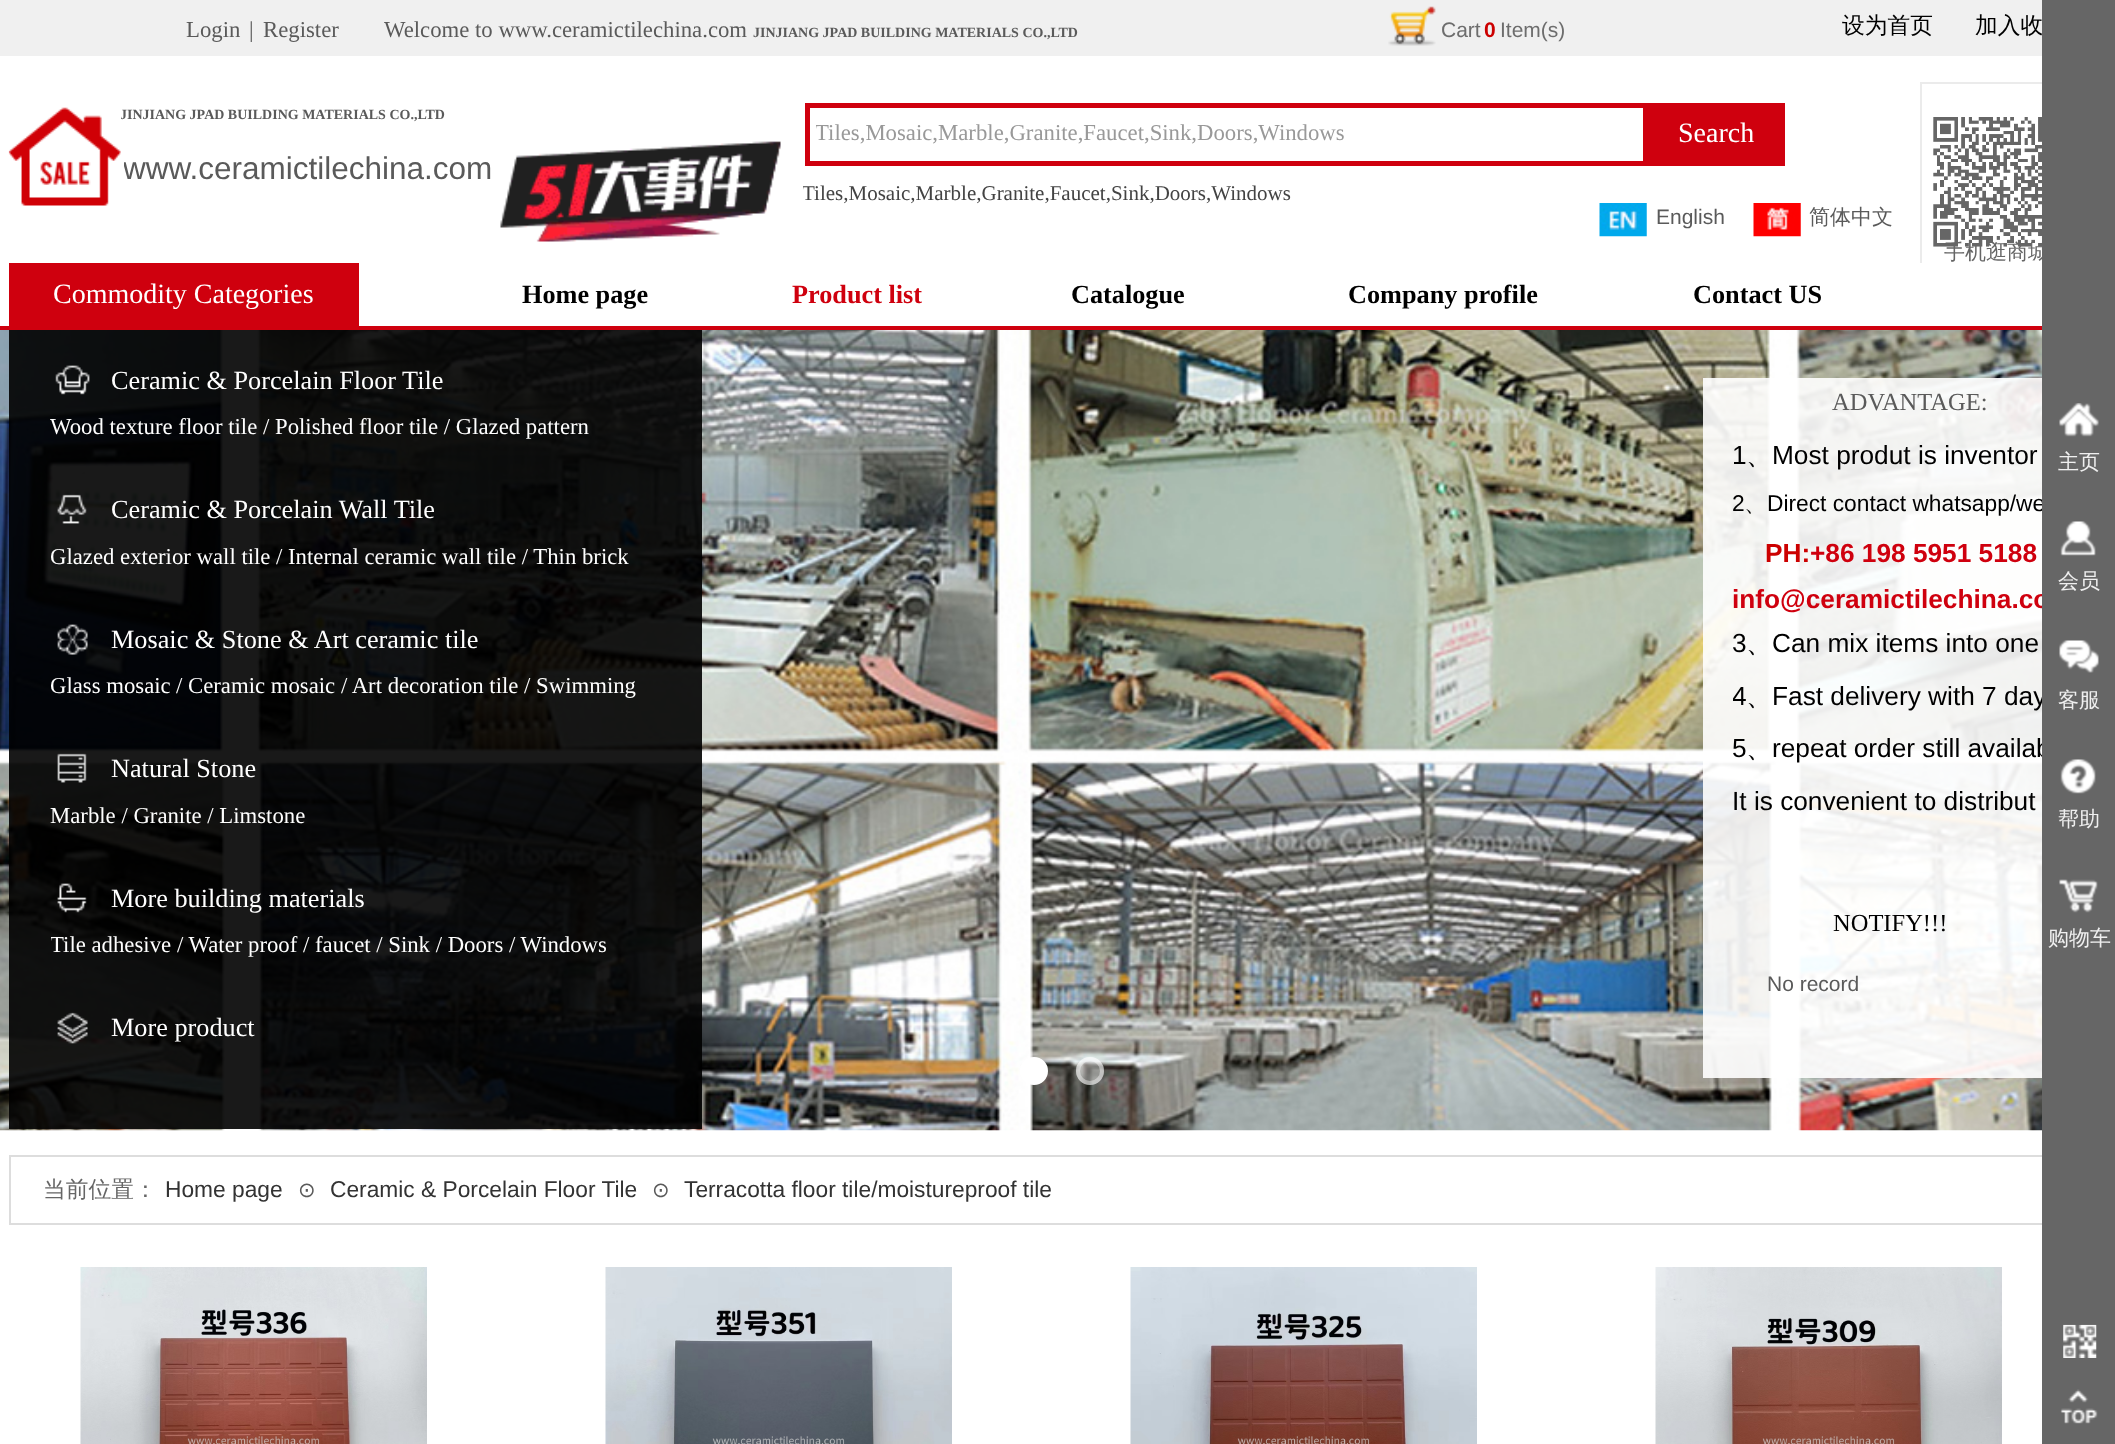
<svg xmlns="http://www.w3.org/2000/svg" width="2115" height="1444">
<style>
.a{font:22.75px Liberation Serif;fill:#5a5a5a}
.b{font:bold 14px Liberation Serif;fill:#5a5a5a}
.c{font:21px Liberation Sans;fill:#6d6d6d}
.d{font:bold 21px Liberation Sans;fill:#c00}
.e{font:500 22.75px WenQuanYi Zen Hei;fill:#000}
.f{font:31.5px Liberation Sans;fill:#5a5a5a}
.g{font:22.75px Liberation Serif;fill:#999}
.h{font:28px Liberation Serif;fill:#fff}
.i{font:21px Liberation Serif;fill:#434343}
.j{font:21px Liberation Sans;fill:#5a5a5a}
.k{font:500 21px WenQuanYi Zen Hei;fill:#5a5a5a}
.l{font:500 21px WenQuanYi Zen Hei;fill:#666}
.m{font:bold 26.25px Liberation Serif;fill:#000}
.n{font:bold 26.25px Liberation Serif;fill:#cf000e}
.o{font:26.25px Liberation Serif;fill:#fff}
.p{font:22.75px Liberation Serif;fill:#fff}
.q{font:24.5px Liberation Serif;fill:#5a5a5a}
.r{font:26.25px Liberation Sans;fill:#000}
.s{font:500 26.25px WenQuanYi Zen Hei;fill:#000}
.t{font:22.75px Liberation Sans;fill:#000}
.u{font:bold 26.25px Liberation Sans;fill:#c00}
.v{font:bold 26.25px Liberation Sans;fill:#cf000e}
.w{font:24.5px Liberation Serif;fill:#000}
.x{font:500 22.75px WenQuanYi Zen Hei;fill:#666}
.y{font:22.75px Liberation Sans;fill:#333}
.z{font:21px DejaVu Sans;fill:#5a5a5a}
.a1{font:500 21px WenQuanYi Zen Hei;fill:#efefef}
</style>
<defs>
<clipPath id="clip1"><path d="M121 105h570v46H121z"/></clipPath>
<clipPath id="clip2"><path d="M124 147h382v46H124z"/></clipPath>
<clipPath id="clip3"><path d="M816 112h845v42H816z"/></clipPath>
<clipPath id="clip4"><path d="M803 109h958v112H803z"/></clipPath>
<clipPath id="clip5"><path d="M51 537h616v39H51z"/></clipPath>
<clipPath id="clip6"><path d="M51 667h616v38H51z"/></clipPath>
<clipPath id="clip7"><path d="M51 926h616v38H51z"/></clipPath>
<clipPath id="clip8"><path d="M1733 429h369v402H1733z"/></clipPath>
</defs>
<rect width="100%" height="100%" fill="#fff"/>
<path fill="#f0f0f0" d="M0 0h2042v56H0z"/>
<image href="1.png" x="1388" y="6" width="48" height="40"/>
<image href="2.png" x="8" y="107" width="113" height="99"/>
<path fill="none" stroke="#cf000e" stroke-width="5" d="M807.5 105.5h975v58H807.5z"/>
<path fill="none" stroke="#ebebeb" stroke-width="2" d="M1921 83h155v198H1921z"/>
<image href="3.png" x="1933" y="117" width="109" height="130"/>
<path fill="#cf000e" d="M1643 108h137v53H1643z"/>
<image href="4.png" x="500" y="141" width="281" height="101"/>
<image href="5.png" x="1599" y="203" width="48" height="34"/>
<image href="6.png" x="1753" y="203" width="48" height="34"/>
<path fill="#fff" d="M1920 263h122v19H1920z"/>
<path fill="#cf000e" d="M9 263h350v63H9z"/>
<path fill="#cf000e" d="M0 326h2042v4H0z"/>
<image href="7.png" x="0" y="330" width="2042" height="801"/>
<circle fill="#fff" stroke="#fff" stroke-width="4" cx="1034" cy="1071" r="12"/>
<circle fill="#ffffff66" cx="1090" cy="1071" r="14"/>
<circle fill="none" stroke="#ffffff66" stroke-width="4" cx="1090" cy="1071" r="12"/>
<path fill="#000000e6" d="M9 330h693v799H9z"/>
<image href="8.png" x="55" y="365" width="35" height="30"/>
<image href="9.png" x="57" y="494" width="30" height="30"/>
<image href="10.png" x="57" y="624" width="31" height="31"/>
<image href="11.png" x="57" y="753" width="30" height="30"/>
<image href="12.png" x="57" y="883" width="30" height="30"/>
<image href="13.png" x="57" y="1012" width="31" height="32"/>
<path fill="#ffffffe6" d="M1703 378h339v700H1703z"/>
<path fill="none" stroke="#ddd" stroke-width="2" d="M10 1156h2098v68H10z"/>
<image href="14.png" x="80" y="1267" width="347" height="177"/>
<image href="15.png" x="605" y="1267" width="347" height="177"/>
<image href="16.png" x="1130" y="1267" width="347" height="177"/>
<image href="17.png" x="1655" y="1267" width="347" height="177"/>
<text class="a" x="186" y="37">Login</text>
<text class="a" x="249" y="37">|</text>
<text class="a" x="263" y="37">Register</text>
<text class="a" x="384" y="37">Welcome to www.ceramictilechina.com</text>
<text class="b" x="753" y="37">JINJIANG JPAD BUILDING MATERIALS CO.,LTD</text>
<text class="c" x="1441" y="37">Cart</text>
<text class="d" x="1484" y="37">0</text>
<text class="c" x="1500" y="37">Item(s)</text>
<text class="e" x="1842" y="33">设为首页</text>
<text class="e" x="1975" y="33">加入收</text>
<g clip-path="url(#clip1)">
<text class="b" x="120" y="119">JINJIANG JPAD BUILDING MATERIALS CO.,LTD</text>
</g>
<g clip-path="url(#clip2)">
<text class="f" x="123" y="179">www.ceramictilechina.com</text>
</g>
<g clip-path="url(#clip3)">
<text class="g" x="815" y="140">Tiles,Mosaic,Marble,Granite,Faucet,Sink,Doors,Windows</text>
</g>
<text class="h" x="1678" y="142">Search</text>
<g clip-path="url(#clip4)">
<text class="i" x="802" y="200">Tiles,Mosaic,Marble,Granite,Faucet,Sink,Doors,Windows</text>
</g>
<text class="j" x="1656" y="224">English</text>
<text class="k" x="1809" y="224">简体中文</text>
<text class="l" x="1944" y="259">手机逛商城</text>
<text class="h" x="53" y="303">Commodity Categories</text>
<text class="m" x="522" y="303">Home page</text>
<text class="n" x="792" y="303">Product list</text>
<text class="m" x="1071" y="303">Catalogue</text>
<text class="m" x="1348" y="303">Company profile</text>
<text class="m" x="1693" y="303">Contact US</text>
<text class="o" x="111" y="389">Ceramic &amp; Porcelain Floor Tile</text>
<text class="p" x="50" y="434">Wood texture floor tile / Polished floor tile / Glazed pattern</text>
<text class="o" x="111" y="518">Ceramic &amp; Porcelain Wall Tile</text>
<g clip-path="url(#clip5)">
<text class="p" x="50" y="564">Glazed exterior wall tile</text>
</g>
<text class="p" x="276" y="564">/ Internal ceramic wall tile / Thin brick</text>
<text class="o" x="111" y="648">Mosaic &amp; Stone &amp; Art ceramic tile</text>
<g clip-path="url(#clip6)">
<text class="p" x="50" y="693">Glass mosaic</text>
</g>
<text class="p" x="176" y="693">/ Ceramic mosaic / Art decoration tile / Swimming</text>
<text class="o" x="111" y="777">Natural Stone</text>
<text class="p" x="50" y="823">Marble / Granite / Limstone</text>
<text class="o" x="111" y="907">More building materials</text>
<g clip-path="url(#clip7)">
<text class="p" x="50" y="952">Tile adhesive</text>
</g>
<text class="p" x="177" y="952">/ Water proof / faucet / Sink / Doors / Windows</text>
<text class="o" x="111" y="1036">More product</text>
<text class="q" x="1832" y="410">ADVANTAGE:</text>
<text class="r" x="1732" y="464">1</text>
<text class="s" x="1746" y="464">、</text>
<text class="r" x="1772" y="464">Most produt is inventor</text>
<text class="t" x="1732" y="511">2</text>
<text class="t" x="1767" y="511">Direct contact whatsapp/we</text>
<text class="e" x="1744" y="511">、</text>
<text class="u" x="1765" y="562">PH:</text>
<text class="v" x="1810" y="562">+86 198 5951 5188</text>
<text class="v" x="1732" y="608">info@ceramictilechina.co</text>
<text class="r" x="1732" y="652">3</text>
<text class="s" x="1746" y="652">、</text>
<text class="r" x="1772" y="652">Can mix items into one</text>
<g clip-path="url(#clip8)">
<text class="r" x="1732" y="705">4</text>
</g>
<text class="s" x="1746" y="705">、</text>
<text class="r" x="1772" y="705">Fast delivery with 7 day</text>
<text class="r" x="1732" y="757">5</text>
<text class="s" x="1746" y="757">、</text>
<text class="r" x="1772" y="757">repeat order still availab</text>
<text class="r" x="1732" y="810">It is convenient to distribut</text>
<text class="w" x="1833" y="931">NOTIFY!!!</text>
<text class="j" x="1767" y="991">No record</text>
<text class="x" x="43" y="1197">当前位置：</text>
<text class="y" x="165" y="1197">Home page</text>
<text class="z" x="298" y="1197">⊙</text>
<text class="y" x="330" y="1197">Ceramic &amp; Porcelain Floor Tile</text>
<text class="z" x="652" y="1197">⊙</text>
<text class="y" x="684" y="1197">Terracotta floor tile/moistureproof tile</text>
<path fill="#666" d="M2042 0h73v1444H2042z"/>
<image href="18.png" x="2059" y="403" width="40" height="34"/>
<text class="a1" x="2058" y="469">主页</text>
<image href="19.png" x="2060" y="521" width="36" height="35"/>
<text class="a1" x="2058" y="588">会员</text>
<image href="20.png" x="2059" y="640" width="40" height="33"/>
<text class="a1" x="2058" y="707">客服</text>
<image href="21.png" x="2060" y="759" width="36" height="35"/>
<text class="a1" x="2058" y="826">帮助</text>
<image href="22.png" x="2059" y="879" width="39" height="34"/>
<text class="a1" x="2048" y="945">购物车</text>
<image href="23.png" x="2063" y="1324" width="34" height="34"/>
<image href="24.png" x="2060" y="1389" width="38" height="35"/>
</svg>
